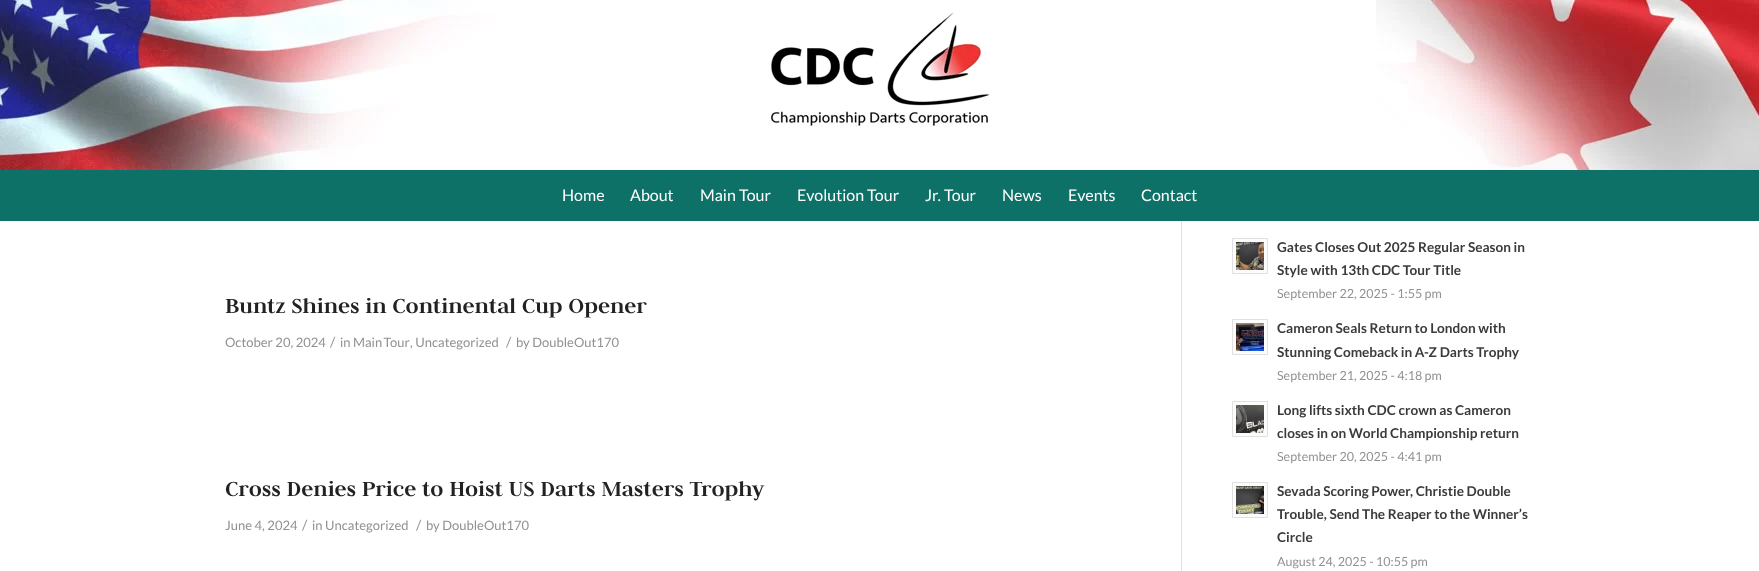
<svg xmlns="http://www.w3.org/2000/svg" width="1759" height="571">
<style>
.a{font:16px Lato;fill:#fff}
.b{font:bold 24px Judson;fill:#222}
.c{font:13px Lato;fill:#919191}
.d{font:14px Lato;fill:#919191}
.e{font:bold 13.6px Lato;fill:#3b3b3b}
.f{font:12.5px Lato;fill:#919191}
</style>
<rect width="100%" height="100%" fill="#fff"/>
<image href="1.png" x="0" y="0" width="1759" height="170"/>
<path fill="#0e7167" d="M0 170h1759v51H0z"/>
<image href="2.png" x="771" y="12" width="219" height="115"/>
<path fill="#e1e1e1" d="M1181 221h1v350H1181z"/>
<path fill="#fcfcfc" stroke="#e1e1e1" d="M1232.5 238.5h35v35H1232.5z"/>
<image href="3.png" x="1236" y="242" width="28" height="28"/>
<path fill="#fcfcfc" stroke="#e1e1e1" d="M1232.5 319.5h35v35H1232.5z"/>
<image href="4.png" x="1236" y="323" width="28" height="28"/>
<path fill="#fcfcfc" stroke="#e1e1e1" d="M1232.5 401.5h35v35H1232.5z"/>
<image href="5.png" x="1236" y="405" width="28" height="28"/>
<path fill="#fcfcfc" stroke="#e1e1e1" d="M1232.5 482.5h35v35H1232.5z"/>
<image href="6.png" x="1236" y="486" width="28" height="28"/>
<text class="a" x="562" y="201">Home</text>
<text class="a" x="630" y="201">About</text>
<text class="a" x="700" y="201">Main Tour</text>
<text class="a" x="797" y="201">Evolution Tour</text>
<text class="a" x="925" y="201">Jr. Tour</text>
<text class="a" x="1002" y="201">News</text>
<text class="a" x="1068" y="201">Events</text>
<text class="a" x="1141" y="201">Contact</text>
<text class="b" x="225" y="313">Buntz Shines in Continental Cup Opener</text>
<text class="c" x="225" y="347">October 20, 2024</text>
<text class="d" x="330" y="347">/</text>
<text class="c" x="340" y="347">in</text>
<text class="c" x="353" y="347" word-spacing="-1">Main Tour</text>
<text class="c" x="410" y="347">, Uncategorized</text>
<text class="d" x="506" y="347">/</text>
<text class="c" x="516" y="347">by DoubleOut170</text>
<text class="b" x="225" y="496">Cross Denies Price to Hoist US Darts Masters Trophy</text>
<text class="c" x="225" y="530">June 4, 2024</text>
<text class="d" x="302" y="530">/</text>
<text class="c" x="312" y="530">in Uncategorized</text>
<text class="d" x="416" y="530">/</text>
<text class="c" x="426" y="530">by DoubleOut170</text>
<text class="e" x="1277" y="252">Gates Closes Out 2025 Regular Season in</text>
<text class="e" x="1277" y="275">Style with 13th CDC Tour Title</text>
<text class="f" x="1277" y="298">September 22, 2025 - 1:55 pm</text>
<text class="e" x="1277" y="333">Cameron Seals Return to London with</text>
<text class="e" x="1277" y="357">Stunning Comeback in A-Z Darts Trophy</text>
<text class="f" x="1277" y="380">September 21, 2025 - 4:18 pm</text>
<text class="e" x="1277" y="415">Long lifts sixth CDC crown as Cameron</text>
<text class="e" x="1277" y="438">closes in on World Championship return</text>
<text class="f" x="1277" y="461">September 20, 2025 - 4:41 pm</text>
<text class="e" x="1277" y="496">Sevada Scoring Power, Christie Double</text>
<text class="e" x="1277" y="519">Trouble, Send The Reaper to the Winner’s</text>
<text class="e" x="1277" y="542">Circle</text>
<text class="f" x="1277" y="566">August 24, 2025 - 10:55 pm</text>
</svg>
